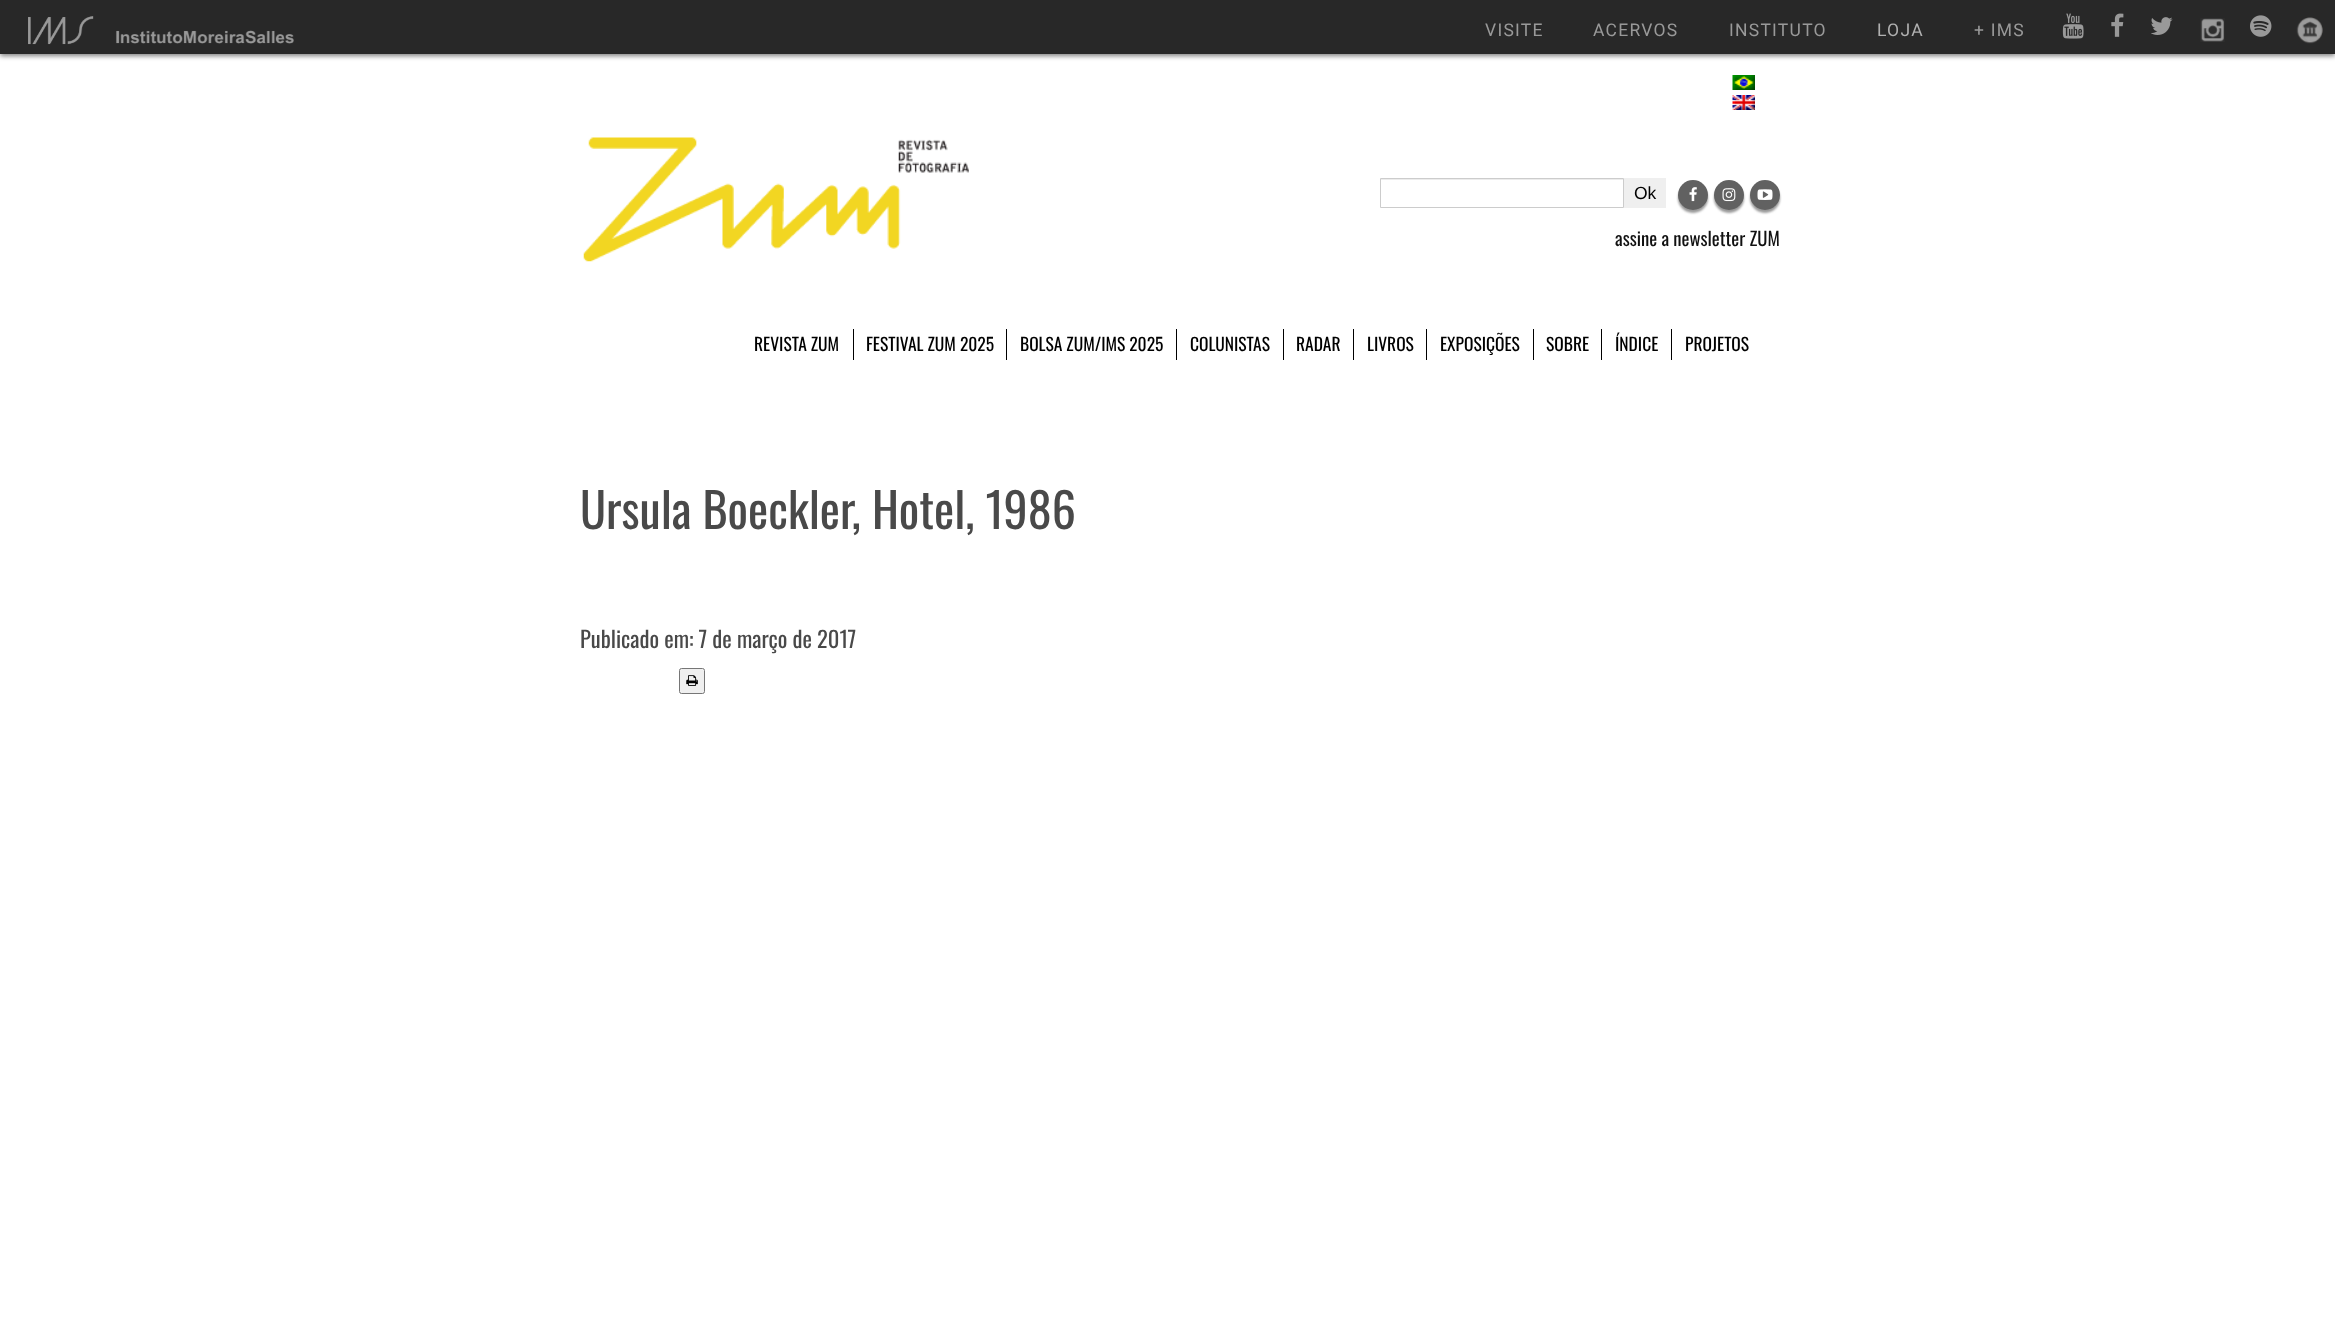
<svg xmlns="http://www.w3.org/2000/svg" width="2335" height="1323">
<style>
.a{font:17.5px Roboto;letter-spacing:1.25px;fill:#999}
.b{font:17.5px Roboto;letter-spacing:1.25px;fill:#b0b0b0}
.c{font:17.5px Liberation Sans;fill:#000}
.d{font:18.75px Oswald;fill:#111}
.e{font:17.5px Oswald;fill:#000}
.f{font:48.1px Oswald;fill:#494949}
.g{font:22.5px Oswald;fill:#494949}
</style>
<rect width="100%" height="100%" fill="#fff"/>
<path fill="#00000080" filter="blur(2.5px)" d="M0 3h2335v53H0z"/>
<path fill="#282828" d="M0 0h2335v54H0z"/>
<image href="1.png" x="28" y="16" width="266" height="29"/>
<image href="2.png" x="2062" y="13" width="22" height="26"/>
<image href="3.png" x="2111" y="13" width="13" height="24"/>
<image href="4.png" x="2151" y="17" width="22" height="18"/>
<image href="5.png" x="2200" y="18" width="25" height="24"/>
<image href="6.png" x="2250" y="15" width="22" height="22"/>
<image href="7.png" x="2296" y="17" width="27" height="27"/>
<image href="8.png" x="583" y="137" width="386" height="125"/>
<image href="9.png" x="1732" y="75" width="23" height="15"/>
<image href="10.png" x="1732" y="95" width="23" height="15"/>
<path fill="#ececec" d="M1381 179h242v1H1381z"/>
<path fill="none" stroke="#ccc" d="M1380.5 178.5h243v29H1380.5z"/>
<path fill="#efefef" d="M1624 178h42v30H1624z"/>
<rect fill="#999" filter="blur(1px)" x="1678" y="183" width="30" height="30" rx="15"/>
<circle fill="#616161" cx="1693" cy="195" r="15"/>
<image href="11.png" x="1689" y="187" width="8" height="15"/>
<rect fill="#999" filter="blur(1px)" x="1714" y="183" width="30" height="30" rx="15"/>
<circle fill="#616161" cx="1729" cy="195" r="15"/>
<image href="12.png" x="1722" y="188" width="14" height="14"/>
<rect fill="#999" filter="blur(1px)" x="1750" y="183" width="30" height="30" rx="15"/>
<circle fill="#616161" cx="1765" cy="195" r="15"/>
<image href="13.png" x="1757" y="189" width="16" height="11"/>
<path fill="#000" d="M853 329h1v31H853z"/>
<path fill="#000" d="M1006 329h1v31H1006z"/>
<path fill="#000" d="M1176 329h1v31H1176z"/>
<path fill="#000" d="M1283 329h1v31H1283z"/>
<path fill="#000" d="M1353 329h1v31H1353z"/>
<path fill="#000" d="M1426 329h1v31H1426z"/>
<path fill="#000" d="M1533 329h1v31H1533z"/>
<path fill="#000" d="M1601 329h1v31H1601z"/>
<path fill="#000" d="M1671 329h1v31H1671z"/>
<rect fill="#efefef" stroke="#767676" x="679.5" y="668.5" width="25" height="25" rx="2"/>
<image href="14.png" x="686" y="675" width="12" height="11"/>
<text class="a" x="1485" y="36">VISITE</text>
<text class="a" x="1593" y="36">ACERVOS</text>
<text class="a" x="1729" y="36">INSTITUTO</text>
<text class="b" x="1877" y="36">LOJA</text>
<text class="a" x="1974" y="36">+ IMS</text>
<text class="c" x="1634" y="199">Ok</text>
<text class="d" x="1615" y="246">assine a newsletter ZUM</text>
<text class="e" x="754" y="351">REVISTA ZUM</text>
<text class="e" x="866" y="351">FESTIVAL ZUM 2025</text>
<text class="e" x="1020" y="351">BOLSA ZUM/IMS 2025</text>
<text class="e" x="1190" y="351">COLUNISTAS</text>
<text class="e" x="1296" y="351">RADAR</text>
<text class="e" x="1367" y="351">LIVROS</text>
<text class="e" x="1440" y="351">EXPOSIÇÕES</text>
<text class="e" x="1546" y="351">SOBRE</text>
<text class="e" x="1615" y="351">ÍNDICE</text>
<text class="e" x="1685" y="351">PROJETOS</text>
<text class="f" x="580" y="529">Ursula Boeckler, Hotel, 1986</text>
<text class="g" x="580" y="648">Publicado em: 7 de março de 2017</text>
</svg>
